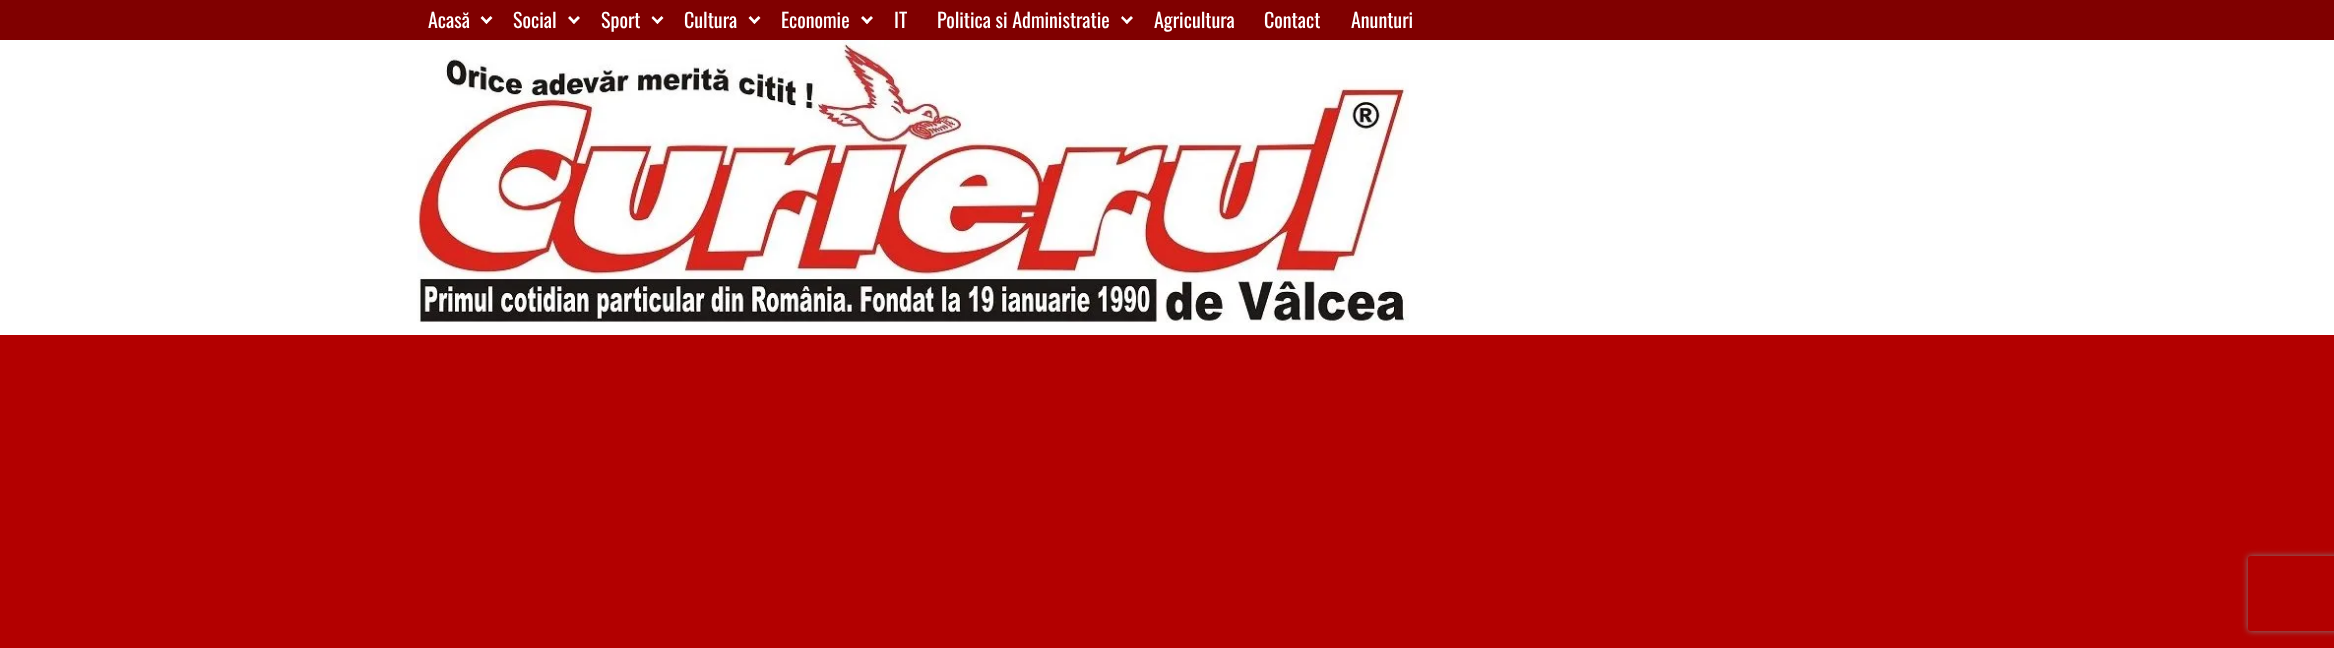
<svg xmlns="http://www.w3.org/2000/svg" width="2334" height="648">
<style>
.a{font:20px Oswald;fill:#fff}
</style>
<defs>
<clipPath id="clip1"><path d="M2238 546h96v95h-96zm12.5 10h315c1.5 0 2.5 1 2.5 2.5v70c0 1.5-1 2.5-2.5 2.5h-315c-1.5 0-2.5-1-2.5-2.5v-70c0-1.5 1-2.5 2.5-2.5z" clip-rule="evenodd"/></clipPath>
</defs>
<rect width="100%" height="100%" fill="#fff"/>
<path fill="#800000" d="M0 0h2334v40H0z"/>
<path fill="#fff" d="M490.5 16l2 2l-6 6l-2-2z"/>
<path fill="#fff" d="M482.5 16l5.5 6l-1.5 2l-6-6z"/>
<path fill="#fff" d="M578 16l2 2l-6 6l-2-2z"/>
<path fill="#fff" d="M570 16l5.5 6l-1.5 2l-6-6z"/>
<path fill="#fff" d="M661.5 16l2 2l-6 6l-2-2z"/>
<path fill="#fff" d="M653 16l6 6l-1.5 2l-6-6z"/>
<path fill="#fff" d="M758.5 16l2 2l-6 6l-2-2z"/>
<path fill="#fff" d="M750.5 16l5.5 6l-1.5 2l-6-6z"/>
<path fill="#fff" d="M871 16l2 2l-6 6l-2-2z"/>
<path fill="#fff" d="M863 16l6 6l-2 2l-6-6z"/>
<path fill="#fff" d="M1131 16l2 2l-6 6l-2-2z"/>
<path fill="#fff" d="M1122.5 16l6 6l-1.5 2l-6-6z"/>
<image href="1.png" x="417" y="40" width="992" height="283"/>
<path fill="#b30000" d="M0 335h2334v313H0z"/>
<g clip-path="url(#clip1)">
<rect fill="#808080" filter="blur(3px)" x="2248" y="556" width="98" height="75" rx="2.5"/>
</g>
<text class="a" x="428" y="28">Acasă</text>
<text class="a" x="513" y="28">Social</text>
<text class="a" x="601" y="28">Sport</text>
<text class="a" x="684" y="28">Cultura</text>
<text class="a" x="781" y="28">Economie</text>
<text class="a" x="894" y="28">IT</text>
<text class="a" x="937" y="28">Politica si Administratie</text>
<text class="a" x="1154" y="28">Agricultura</text>
<text class="a" x="1264" y="28">Contact</text>
<text class="a" x="1351" y="28">Anunturi</text>
</svg>
